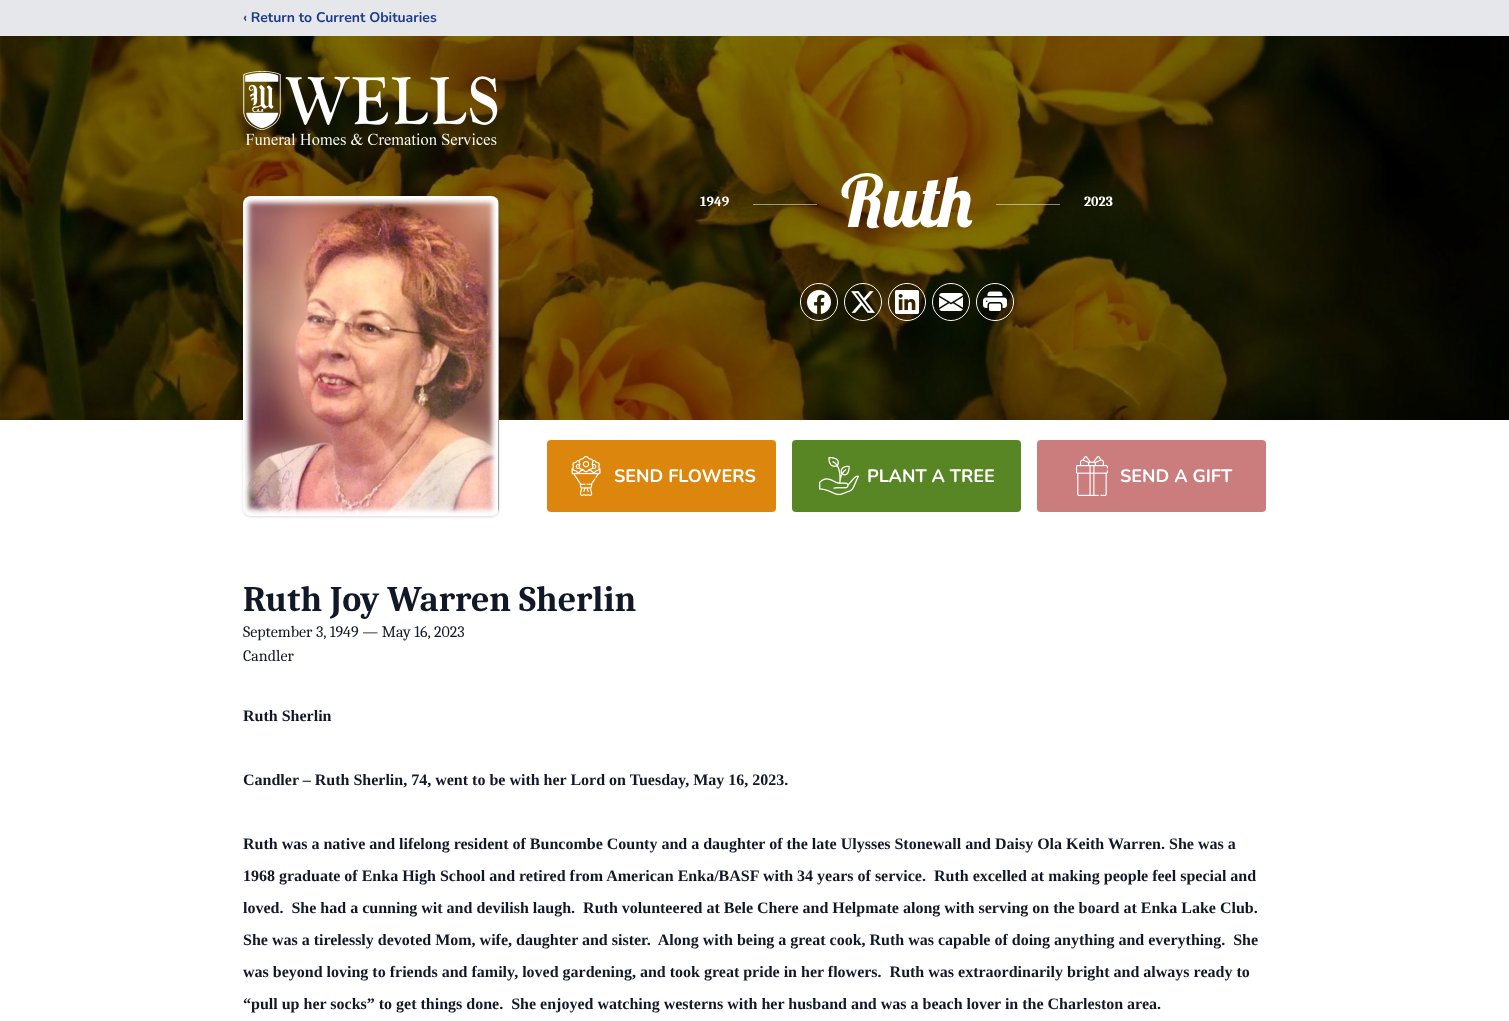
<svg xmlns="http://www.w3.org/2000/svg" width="1509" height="1021">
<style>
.a{font:bold 14px Nunito;fill:#1e3a8a}
.b{font:bold 14px Caladea;fill:#fff}
.c{font:72px Lobster;fill:#fff}
.d{font:bold 18px Nunito;fill:#fff}
.e{font:bold 36px Caladea;fill:#111827}
.f{font:16px Caladea;fill:#111827}
.g{font:bold 16px Liberation Serif;fill:#111827}
</style>
<rect width="100%" height="100%" fill="#fff"/>
<path fill="#e5e7eb" d="M0 0h1509v36H0z"/>
<image href="1.png" x="0" y="36" width="1509" height="384"/>
<image href="2.png" x="243" y="71" width="255" height="74"/>
<rect fill="#0000001a" filter="blur(1px)" x="244" y="198" width="254" height="318" rx="7"/>
<rect fill="#0000001a" filter="blur(1.5px)" x="243" y="197" width="256" height="320" rx="8"/>
<image href="3.png" x="243" y="196" width="256" height="320"/>
<path fill="#ffffff80" d="M753 204h64v1H753z"/>
<path fill="#ffffff80" d="M996 204h64v1H996z"/>
<circle fill="none" stroke="#fff" cx="819" cy="302" r="18.5"/>
<circle fill="#00000033" cx="819" cy="302" r="18"/>
<image href="4.png" x="807" y="290" width="24" height="24"/>
<circle fill="none" stroke="#fff" cx="863" cy="302" r="18.5"/>
<circle fill="#00000033" cx="863" cy="302" r="18"/>
<image href="5.png" x="851" y="291" width="24" height="22"/>
<circle fill="none" stroke="#fff" cx="907" cy="302" r="18.5"/>
<circle fill="#00000033" cx="907" cy="302" r="18"/>
<image href="6.png" x="895" y="290" width="24" height="24"/>
<circle fill="none" stroke="#fff" cx="951" cy="302" r="18.5"/>
<circle fill="#00000033" cx="951" cy="302" r="18"/>
<image href="7.png" x="939" y="293" width="24" height="18"/>
<circle fill="none" stroke="#fff" cx="995" cy="302" r="18.5"/>
<circle fill="#00000033" cx="995" cy="302" r="18"/>
<image href="8.png" x="983" y="291" width="24" height="20"/>
<rect fill="#dc860d" x="547" y="440" width="229" height="72" rx="4"/>
<image href="9.png" x="571" y="456" width="30" height="40"/>
<rect fill="#588624" x="792" y="440" width="229" height="72" rx="4"/>
<image href="10.png" x="819" y="456" width="40" height="40"/>
<rect fill="#cb7c7c" x="1037" y="440" width="229" height="72" rx="4"/>
<image href="11.png" x="1076" y="456" width="32" height="40"/>
<text class="a" x="243" y="22">‹ Return to Current Obituaries</text>
<text class="b" x="700" y="206">1949</text>
<text class="c" x="841" y="227">Ruth</text>
<text class="b" x="1084" y="206">2023</text>
<text class="d" x="614" y="482">SEND FLOWERS</text>
<text class="d" x="867" y="482">PLANT A TREE</text>
<text class="d" x="1120" y="482">SEND A GIFT</text>
<text class="e" x="243" y="611">Ruth Joy Warren Sherlin</text>
<text class="f" x="243" y="637">September 3, 1949 — May 16, 2023</text>
<text class="f" x="243" y="661">Candler</text>
<text class="g" x="243" y="721">Ruth Sherlin</text>
<text class="g" x="243" y="785">Candler – Ruth Sherlin, 74, went to be with her Lord on Tuesday, May 16, 2023.</text>
<text class="g" x="243" y="849">Ruth was a native and lifelong resident of Buncombe County and a daughter of the late Ulysses Stonewall and Daisy Ola Keith Warren. She was a</text>
<text class="g" xml:space="preserve" x="243" y="881">1968 graduate of Enka High School and retired from American Enka/BASF with 34 years of service.  Ruth excelled at making people feel special and</text>
<text class="g" xml:space="preserve" x="243" y="913">loved.  She had a cunning wit and devilish laugh.  Ruth volunteered at Bele Chere and Helpmate along with serving on the board at Enka Lake Club.</text>
<text class="g" xml:space="preserve" x="243" y="945">She was a tirelessly devoted Mom, wife, daughter and sister.  Along with being a great cook, Ruth was capable of doing anything and everything.  She</text>
<text class="g" xml:space="preserve" x="243" y="977">was beyond loving to friends and family, loved gardening, and took great pride in her flowers.  Ruth was extraordinarily bright and always ready to</text>
<text class="g" xml:space="preserve" x="243" y="1009">“pull up her socks” to get things done.  She enjoyed watching westerns with her husband and was a beach lover in the Charleston area.</text>
</svg>
